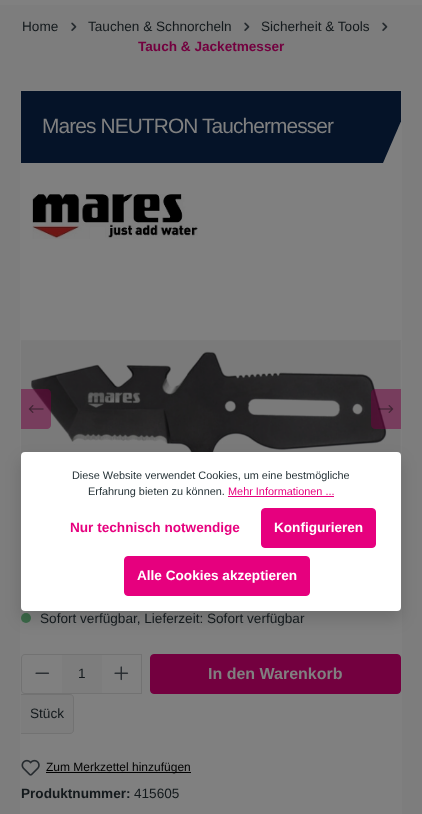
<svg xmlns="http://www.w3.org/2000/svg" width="422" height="814">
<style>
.a{font:13.6px Liberation Sans;fill:#13191c}
.b{font:bold 13.6px Liberation Sans;fill:#73003f}
.c{font:20.9px Liberation Sans;letter-spacing:-0.9px;fill:#808080}
.d{font:bold 16px Liberation Sans;fill:#808080}
.e{font:12px Liberation Sans;fill:#000}
.f{font:bold 13.6px Liberation Sans;fill:#13191c}
.g{font:10.9px Liberation Sans;fill:#253237}
.h{font:10.9px Liberation Sans;fill:#e6007e}
.i{font:bold 13.6px Liberation Sans;fill:#e6007e}
.j{font:bold 13.6px Liberation Sans;fill:#fff}
</style>
<defs>
<clipPath id="clip1"><path d="M21 91h380v184H21z"/></clipPath>
<clipPath id="clip2"><path d="M21 277h380v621H21z"/></clipPath>
</defs>
<rect width="100%" height="100%" fill="#7d7d7d"/>
<path fill="#808080" d="M0 0h422v5H0z"/>
<image href="1.png" x="71" y="22" width="6" height="9"/>
<image href="1.png" x="244" y="22" width="6" height="9"/>
<image href="1.png" x="382" y="22" width="6" height="9"/>
<path fill="#808080" d="M20 90h382v724H20z"/>
<g clip-path="url(#clip1)">
<path fill="#051328" d="M-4 91h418l-31 72h-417z"/>
</g>
<image href="2.png" x="32" y="194" width="166" height="45"/>
<image href="3.png" x="21" y="340" width="380" height="116"/>
<path fill="#73003f80" d="M21 389h26c2 0 4 2 4 4v32c0 2-2 4-4 4h-26z"/>
<image href="4.png" x="28" y="405" width="16" height="8"/>
<path fill="#73003f80" d="M375 389h26v40h-26c-2 0-4-2-4-4v-32c0-2 2-4 4-4z"/>
<image href="5.png" x="378" y="405" width="16" height="8"/>
<circle fill="#3b6848" cx="26" cy="618" r="5"/>
<path fill="#7d7d7d" d="M62 655h40v38H62z"/>
<path fill="#727272" d="M62 654h80v1H62z"/>
<path fill="#727272" d="M62 693h40v1H62z"/>
<path fill="#727272" fill-rule="evenodd" d="M25 654h38v40h-38c-2 0-4-2-4-4v-32c0-2 2-4 4-4zm0 1h38v38h-38c-2 0-3-1-3-3v-32c0-2 1-3 3-3z"/>
<image href="6.png" x="35" y="672" width="15" height="2"/>
<path fill="#727272" d="M141 654h1v40H141z"/>
<path fill="#727272" d="M101 693h41v1H101z"/>
<image href="7.png" x="114" y="666" width="15" height="15"/>
<path fill="#7d7d7d" d="M21 694h49c2 0 4 2 4 4v32c0 2-2 4-4 4h-49z"/>
<g clip-path="url(#clip2)">
<path fill="none" stroke="#727272" d="M20.5 694.5h49.5c2 0 3.5 1.5 3.5 3.5v32c0 2-1.5 3.5-3.5 3.5h-49.5z"/>
</g>
<rect fill="#73003f" stroke="#73003f" x="150.5" y="654.5" width="250" height="39" rx="3.5"/>
<image href="8.png" x="21" y="759" width="19" height="17"/>
<path fill="#000" d="M46 772h145v1H46z"/>
<rect fill="#00000026" filter="blur(8px)" x="21" y="460" width="380" height="159" rx="4"/>
<rect fill="#fff" x="21" y="452" width="380" height="159" rx="4"/>
<path fill="#e6007e" d="M228 496h106v1H228z"/>
<rect fill="#e6007e" stroke="#e6007e" x="261.5" y="508.5" width="114" height="39" rx="3.5"/>
<rect fill="#e6007e" stroke="#e6007e" x="124.5" y="556.5" width="185" height="39" rx="3.5"/>
<text class="a" x="22" y="31">Home</text>
<text class="a" x="88" y="31">Tauchen &amp; Schnorcheln</text>
<text class="a" x="261" y="31">Sicherheit &amp; Tools</text>
<text class="b" x="138" y="51">Tauch &amp; Jacketmesser</text>
<text class="c" x="42" y="133">Mares NEUTRON Tauchermesser</text>
<text class="a" x="40" y="623">Sofort verfügbar, Lieferzeit: Sofort verfügbar</text>
<text class="a" x="78" y="678">1</text>
<text class="a" x="30" y="718">Stück</text>
<text class="d" x="208" y="679">In den Warenkorb</text>
<text class="e" x="46" y="771">Zum Merkzettel hinzufügen</text>
<text class="f" x="21" y="798">Produktnummer:</text>
<text class="a" x="134" y="798">415605</text>
<text class="g" x="72" y="479">Diese Website verwendet Cookies, um eine bestmögliche</text>
<text class="g" x="88" y="495">Erfahrung bieten zu können.</text>
<text class="h" x="228" y="495">Mehr Informationen ...</text>
<text class="i" x="70" y="532">Nur technisch notwendige</text>
<text class="j" x="274" y="532">Konfigurieren</text>
<text class="j" x="137" y="580">Alle Cookies akzeptieren</text>
</svg>
